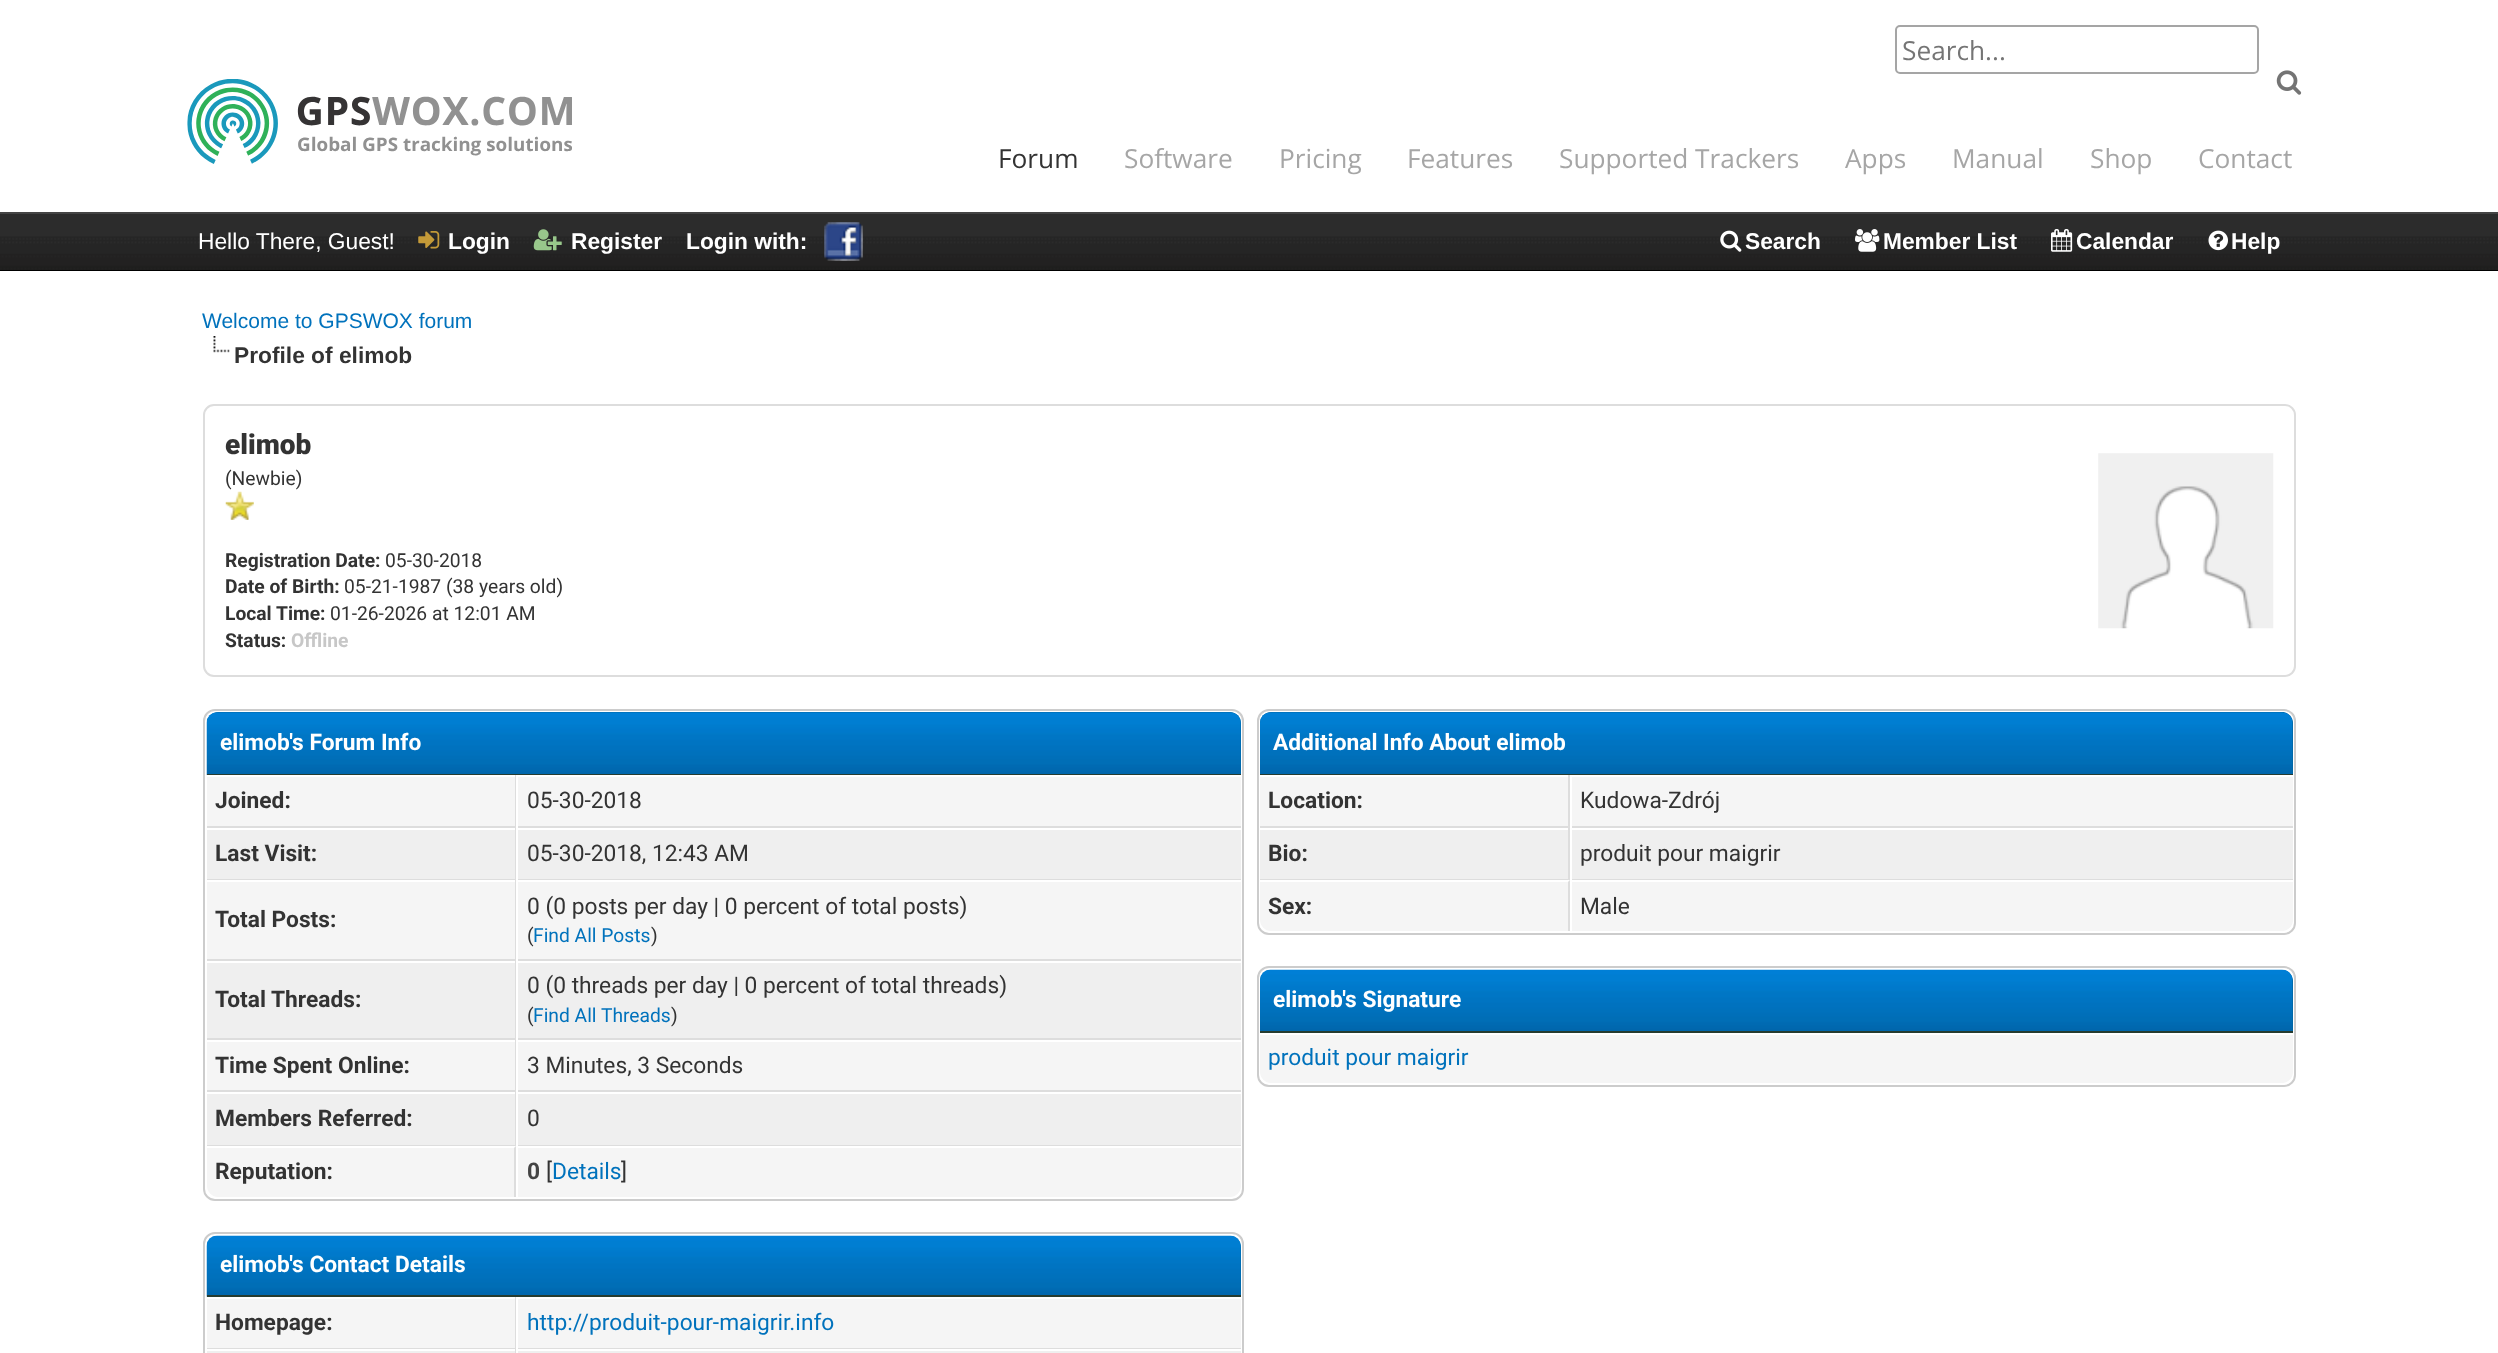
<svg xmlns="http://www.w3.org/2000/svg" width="2498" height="1353">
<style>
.a{font:26.25px Open Sans;fill:#757575}
.b{font:26.25px Open Sans;fill:#333}
.c{font:26.25px Open Sans;fill:#a6a6a6}
.d{font:22.75px Liberation Sans;fill:#fff}
.e{font:bold 22.75px Liberation Sans;fill:#fff}
.f{font:21px Liberation Sans;fill:#0072bc}
.g{font:bold 22.75px Liberation Sans;fill:#333}
.h{font:900 28px Roboto;fill:#333}
.i{font:19.25px Roboto;fill:#333}
.j{font:bold 19.25px Roboto;fill:#333}
.k{font:bold 19.25px Roboto;fill:#c7c7c7}
.l{font:bold 22.75px Roboto;fill:#fff}
.m{font:bold 22.75px Roboto;fill:#333}
.n{font:22.75px Roboto;fill:#333}
.o{font:19.25px Roboto;fill:#0072bc}
.p{font:bold 22.75px Roboto;fill:#444}
.q{font:22.75px Roboto;fill:#0072bc}
</style>
<rect width="100%" height="100%" fill="#fff"/>
<rect fill="none" stroke="#a5a5a5" stroke-width="2" x="1896" y="26" width="362" height="47" rx="4"/>
<image href="1.png" x="2276" y="70" width="26" height="25"/>
<image href="2.png" x="187" y="79" width="385" height="85"/>
<image href="3.png" x="0" y="214" width="2498" height="56"/>
<path fill="#444" d="M0 212h2498v2H0z"/>
<path fill="#000" d="M0 270h2498v1H0z"/>
<image href="4.png" x="418" y="231" width="22" height="18"/>
<image href="5.png" x="533" y="229" width="29" height="22"/>
<image href="6.png" x="824" y="222" width="39" height="39"/>
<image href="7.png" x="1720" y="230" width="22" height="22"/>
<image href="8.png" x="1855" y="229" width="25" height="23"/>
<image href="9.png" x="2051" y="229" width="22" height="23"/>
<image href="10.png" x="2208" y="230" width="20" height="21"/>
<image href="11.png" x="213" y="336" width="17" height="17"/>
<rect fill="none" stroke="#ddd" stroke-width="2" x="204" y="405" width="2091" height="271" rx="10"/>
<image href="12.png" x="225" y="491" width="29" height="29"/>
<image href="13.png" x="2098" y="453" width="176" height="176"/>
<rect fill="none" stroke="#ccc" stroke-width="2" x="204" y="710" width="1039" height="490" rx="11"/>
<path fill="#0066a2" d="M218 712h1012c6 0 11 5 11 11v52h-1034v-52c0-6 5-11 11-11z"/>
<image href="14.png" x="206" y="712" width="1035" height="63"/>
<path fill="#263c30" d="M207 774h1034v1H207z"/>
<path fill="#f5f5f5" d="M207 777h308v49H207z"/>
<path fill="#ddd" d="M515 775h1v371H515z"/>
<path fill="#ddd" d="M207 826h1034v2H207z"/>
<path fill="#f5f5f5" d="M518 777h723v49H518z"/>
<path fill="#fff" d="M516 826h2v2H516z"/>
<path fill="#efefef" d="M207 830h308v49H207z"/>
<path fill="#ddd" d="M207 879h1034v1H207z"/>
<path fill="#efefef" d="M518 830h723v49H518z"/>
<path fill="#fff" d="M516 879h2v1H516z"/>
<path fill="#f5f5f5" d="M207 882h308v77H207z"/>
<path fill="#ddd" d="M207 959h1034v2H207z"/>
<path fill="#f5f5f5" d="M518 882h723v77H518z"/>
<path fill="#fff" d="M516 959h2v2H516z"/>
<path fill="#efefef" d="M207 963h308v75H207z"/>
<path fill="#ddd" d="M207 1038h1034v2H207z"/>
<path fill="#efefef" d="M518 963h723v75H518z"/>
<path fill="#fff" d="M516 1038h2v2H516z"/>
<path fill="#f5f5f5" d="M207 1042h308v48H207z"/>
<path fill="#ddd" d="M207 1090h1034v2H207z"/>
<path fill="#f5f5f5" d="M518 1042h723v48H518z"/>
<path fill="#fff" d="M516 1090h2v2H516z"/>
<path fill="#efefef" d="M207 1094h308v51H207z"/>
<path fill="#ddd" d="M207 1145h1034v1H207z"/>
<path fill="#efefef" d="M518 1094h723v51H518z"/>
<path fill="#fff" d="M516 1145h2v1H516z"/>
<path fill="#f5f5f5" d="M207 1146h309v51h-298c-6 0-11-5-11-11z"/>
<path fill="#fff" d="M206 1146h310l-2 2h-308z"/>
<path fill="#ddd" d="M514 1197h2v-51l-2 2z"/>
<path fill="#f5f5f5" d="M516 1146h725v40c0 6-5 11-11 11h-714z"/>
<path fill="#fff" d="M516 1146h725v2H516z"/>
<path fill="#fff" d="M516 1146h2v51H516z"/>
<rect fill="none" stroke="#ccc" stroke-width="2" x="204" y="1233" width="1039" height="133" rx="11"/>
<path fill="#0066a2" d="M218 1236h1012c6 0 11 5 11 11v50h-1034v-50c0-6 5-11 11-11z"/>
<image href="15.png" x="206" y="1235" width="1035" height="62"/>
<path fill="#263c30" d="M207 1295h1034v2H207z"/>
<path fill="#f5f5f5" d="M207 1299h308v49H207z"/>
<path fill="#ddd" d="M515 1297h1v52H515z"/>
<path fill="#ddd" d="M207 1348h1034v1H207z"/>
<path fill="#f5f5f5" d="M518 1299h723v49H518z"/>
<path fill="#fff" d="M516 1348h2v1H516z"/>
<path fill="#efefef" d="M207 1351h1034v2H207z"/>
<path fill="#ddd" d="M515 1349h1v4H515z"/>
<path fill="#fff" d="M516 1349h2v4H516z"/>
<rect fill="none" stroke="#ccc" stroke-width="2" x="1258" y="710" width="1037" height="224" rx="11"/>
<path fill="#0066a2" d="M1271 712h1011c6 0 11 5 11 11v52h-1033v-52c0-6 5-11 11-11z"/>
<image href="16.png" x="1260" y="712" width="1033" height="62"/>
<path fill="#263c30" d="M1260 774h1033v1H1260z"/>
<path fill="#f5f5f5" d="M1260 777h308v49H1260z"/>
<path fill="#ddd" d="M1568 775h2v105H1568z"/>
<path fill="#ddd" d="M1260 826h1033v2H1260z"/>
<path fill="#f5f5f5" d="M1572 777h721v49H1572z"/>
<path fill="#fff" d="M1570 826h2v2H1570z"/>
<path fill="#efefef" d="M1260 830h308v49H1260z"/>
<path fill="#ddd" d="M1260 879h1033v1H1260z"/>
<path fill="#efefef" d="M1572 830h721v49H1572z"/>
<path fill="#fff" d="M1570 879h2v1H1570z"/>
<path fill="#f5f5f5" d="M1260 880h310v51h-299c-6 0-11-5-11-11z"/>
<path fill="#fff" d="M1260 882h308l2-2h-310z"/>
<path fill="#ddd" d="M1570 880l-2 2v49h2z"/>
<path fill="#f5f5f5" d="M1570 880h723v40c0 6-5 11-11 11h-712z"/>
<path fill="#fff" d="M1570 880h723v2H1570z"/>
<path fill="#fff" d="M1570 880h2v51H1570z"/>
<rect fill="none" stroke="#ccc" stroke-width="2" x="1258" y="967" width="1037" height="119" rx="11"/>
<path fill="#0066a2" d="M1271 970h1011c6 0 11 5 11 11v52h-1033v-52c0-6 5-11 11-11z"/>
<image href="17.png" x="1260" y="969" width="1033" height="62"/>
<path fill="#263c30" d="M1260 1031h1033v2H1260z"/>
<path fill="#f5f5f5" d="M1260 1033h1033v39c0 6-5 11-11 11h-1011c-6 0-11-5-11-11z"/>
<path fill="#fff" d="M1260 1033h1033v2H1260z"/>
<text class="a" x="1902" y="60">Search...</text>
<text class="b" x="998" y="168">Forum</text>
<text class="c" x="1124" y="168">Software</text>
<text class="c" x="1279" y="168">Pricing</text>
<text class="c" x="1407" y="168">Features</text>
<text class="c" x="1559" y="168">Supported Trackers</text>
<text class="c" x="1845" y="168">Apps</text>
<text class="c" x="1952" y="168">Manual</text>
<text class="c" x="2090" y="168">Shop</text>
<text class="c" x="2198" y="168">Contact</text>
<text class="d" x="198" y="249">Hello There, Guest!</text>
<text class="e" x="448" y="249">Login</text>
<text class="e" x="571" y="249">Register</text>
<text class="e" x="686" y="249">Login with:</text>
<text class="e" x="1745" y="249">Search</text>
<text class="e" x="1883" y="249">Member List</text>
<text class="e" x="2076" y="249">Calendar</text>
<text class="e" x="2231" y="249">Help</text>
<text class="f" x="202" y="328">Welcome to GPSWOX forum</text>
<text class="g" x="234" y="363">Profile of elimob</text>
<text class="h" x="225" y="454">elimob</text>
<text class="i" x="225" y="485">(Newbie)</text>
<text class="j" x="225" y="567">Registration Date:</text>
<text class="i" x="385" y="567">05-30-2018</text>
<text class="j" x="225" y="593">Date of Birth:</text>
<text class="i" x="344" y="593">05-21-1987 (38 years old)</text>
<text class="j" x="225" y="620">Local Time:</text>
<text class="i" x="330" y="620">01-26-2026 at 12:01 AM</text>
<text class="j" x="225" y="647">Status:</text>
<text class="k" x="291" y="647">Offline</text>
<text class="l" x="220" y="750">elimob's Forum Info</text>
<text class="m" x="215" y="808">Joined:</text>
<text class="n" x="527" y="808">05-30-2018</text>
<text class="m" x="215" y="861">Last Visit:</text>
<text class="n" x="527" y="861">05-30-2018, 12:43 AM</text>
<text class="m" x="215" y="927">Total Posts:</text>
<text class="n" x="527" y="914">0 (0 posts per day | 0 percent of total posts)</text>
<text class="i" x="527" y="942">(</text>
<text class="o" x="533" y="942">Find All Posts</text>
<text class="i" x="651" y="942">)</text>
<text class="m" x="215" y="1007">Total Threads:</text>
<text class="n" x="527" y="993">0 (0 threads per day | 0 percent of total threads)</text>
<text class="i" x="527" y="1022">(</text>
<text class="o" x="533" y="1022">Find All Threads</text>
<text class="i" x="671" y="1022">)</text>
<text class="m" x="215" y="1073">Time Spent Online:</text>
<text class="n" x="527" y="1073">3 Minutes, 3 Seconds</text>
<text class="m" x="215" y="1126">Members Referred:</text>
<text class="n" x="527" y="1126">0</text>
<text class="m" x="215" y="1179">Reputation:</text>
<text class="p" x="527" y="1179">0</text>
<text class="n" x="546" y="1179">[</text>
<text class="q" x="552" y="1179">Details</text>
<text class="n" x="621" y="1179">]</text>
<text class="l" x="220" y="1272">elimob's Contact Details</text>
<text class="m" x="215" y="1330">Homepage:</text>
<text class="q" x="527" y="1330">http://produit-pour-maigrir.info</text>
<text class="l" x="1273" y="750">Additional Info About elimob</text>
<text class="m" x="1268" y="808">Location:</text>
<text class="n" x="1580" y="808">Kudowa-Zdrój</text>
<text class="m" x="1268" y="861">Bio:</text>
<text class="n" x="1580" y="861">produit pour maigrir</text>
<text class="m" x="1268" y="914">Sex:</text>
<text class="n" x="1580" y="914">Male</text>
<text class="l" x="1273" y="1007">elimob's Signature</text>
<text class="q" x="1268" y="1065">produit pour maigrir</text>
</svg>
